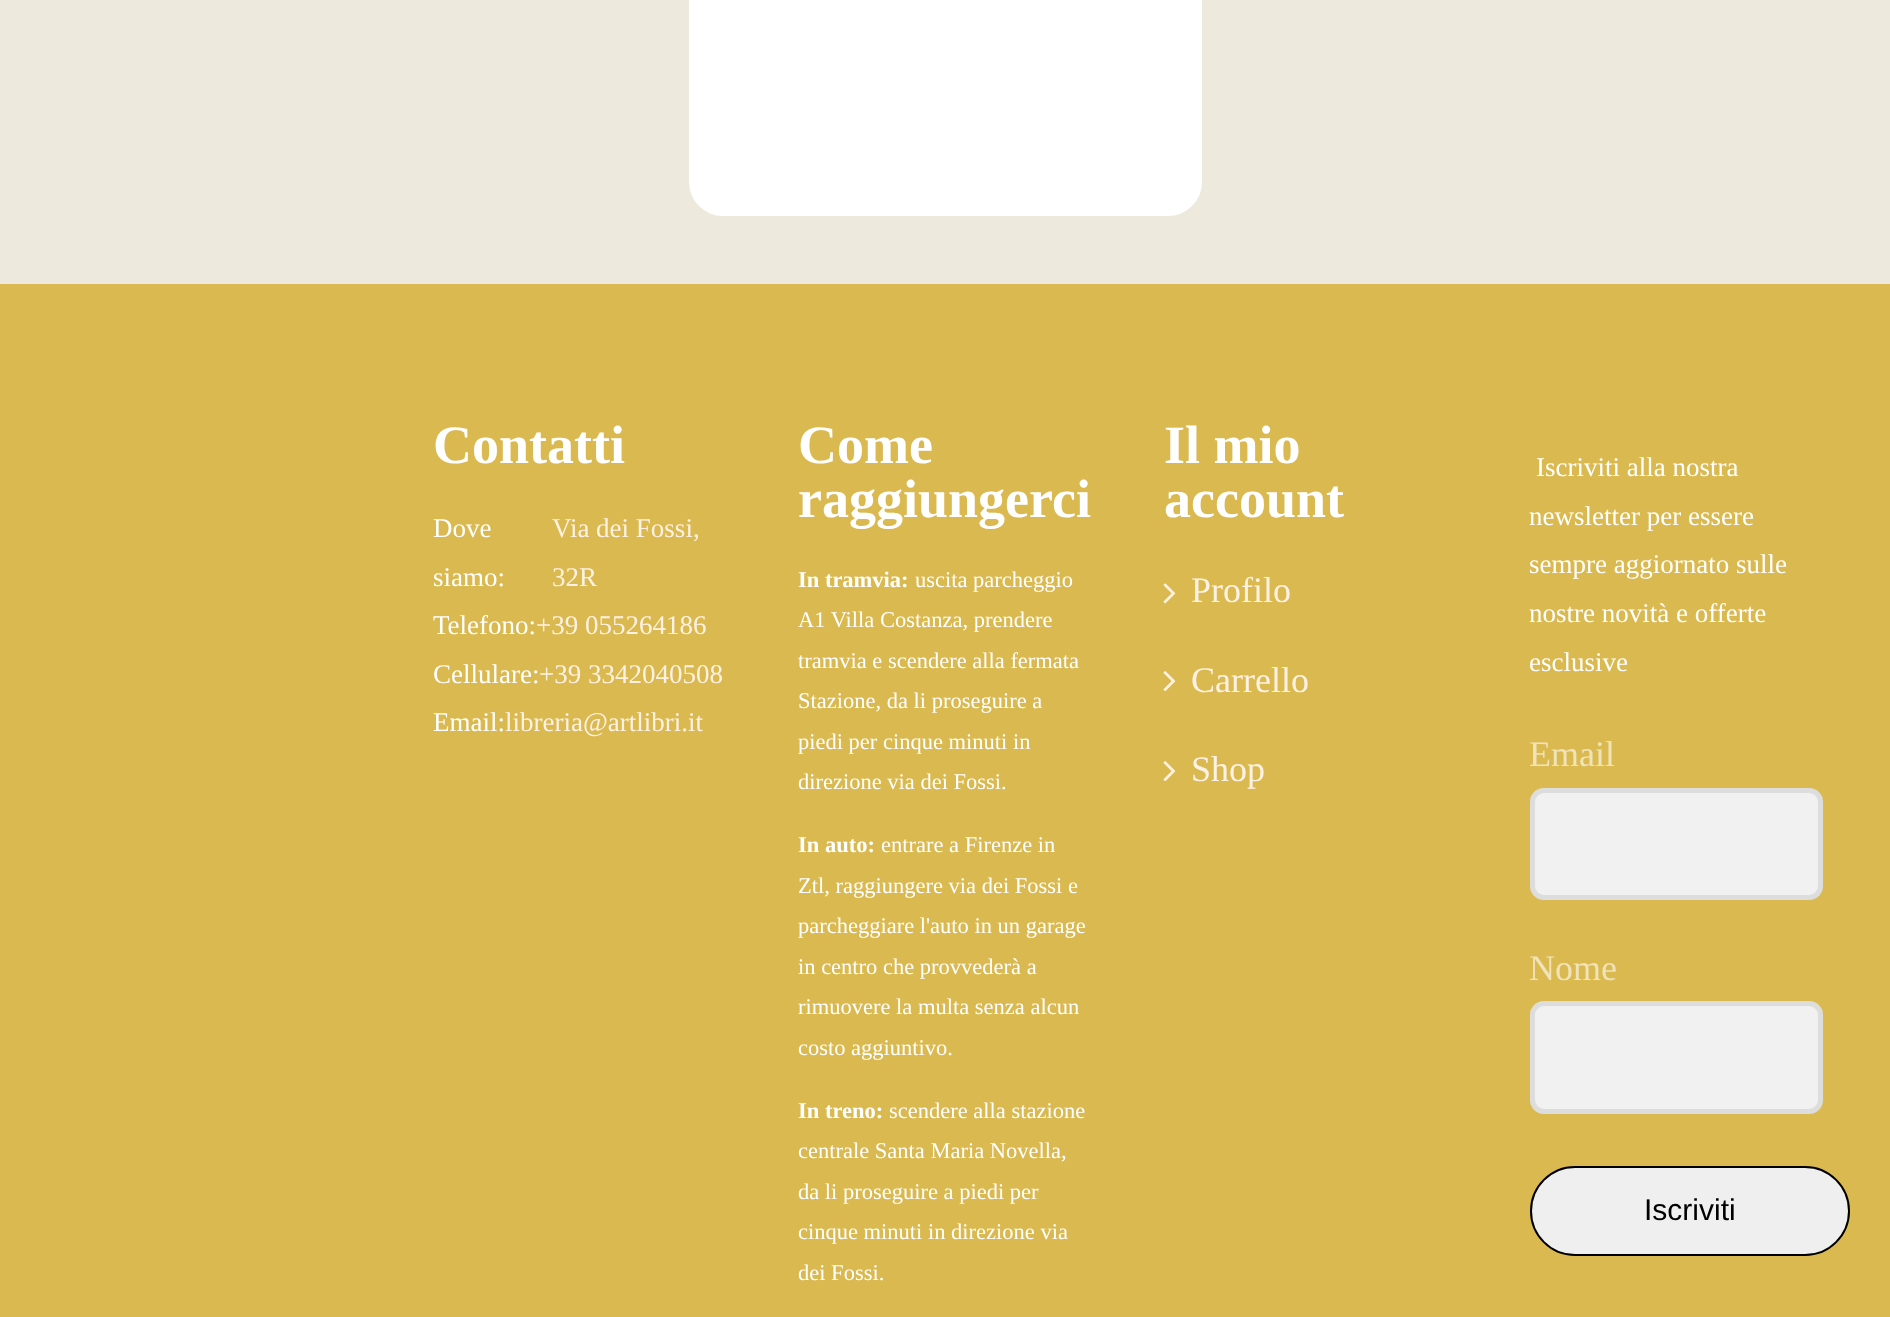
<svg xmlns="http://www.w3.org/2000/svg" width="1890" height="1317">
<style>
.a{font:bold 54px Liberation Serif;fill:#fff}
.b{font:27px Liberation Serif;fill:#fff}
.c{font:27px Liberation Serif;fill:#fff2e5}
.d{font:bold 22.5px Liberation Serif;fill:#fff}
.e{font:22.5px Liberation Serif;fill:#fff}
.f{font:36px Liberation Serif;fill:#fff2e5}
.g{font:36px Liberation Serif;fill:#f0e3b9}
.h{font:30px Liberation Sans;fill:#000}
</style>
<rect width="100%" height="100%" fill="#dab950"/>
<path fill="#edeadd" d="M0 0h1890v284H0z"/>
<rect fill="#fff" x="689" y="-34" width="513" height="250" rx="34"/>
<image href="1.png" x="1163" y="583" width="13" height="21"/>
<image href="2.png" x="1163" y="671" width="13" height="21"/>
<image href="2.png" x="1163" y="761" width="13" height="21"/>
<rect fill="#f1f1f1" x="1530" y="788" width="293" height="112" rx="14"/>
<rect fill="none" stroke="#3333331a" stroke-width="5" x="1532.5" y="790.5" width="288" height="107" rx="11.5"/>
<rect fill="#f1f1f1" x="1530" y="1001" width="293" height="113" rx="14"/>
<rect fill="none" stroke="#3333331a" stroke-width="5" x="1532.5" y="1003.5" width="288" height="108" rx="11.5"/>
<rect fill="#efefef" stroke="#000" stroke-width="2" x="1531" y="1167" width="318" height="88" rx="44"/>
<text class="a" x="433" y="463">Contatti</text>
<text class="b" x="433" y="537">Dove</text>
<text class="c" x="552" y="537">Via dei Fossi,</text>
<text class="c" x="552" y="586">32R</text>
<text class="b" x="433" y="586">siamo:</text>
<text class="b" x="433" y="634">Telefono:</text>
<text class="c" x="536" y="634">+39 055264186</text>
<text class="b" x="433" y="683">Cellulare:</text>
<text class="c" x="539" y="683">+39 3342040508</text>
<text class="b" x="433" y="731">Email:</text>
<text class="c" x="505" y="731">libreria@artlibri.it</text>
<text class="a" x="798" y="463">Come</text>
<text class="a" x="798" y="517">raggiungerci</text>
<text class="d" x="798" y="587">In tramvia:</text>
<text class="e" x="915" y="587">uscita parcheggio</text>
<text class="e" x="798" y="627">A1 Villa Costanza, prendere</text>
<text class="e" x="798" y="668">tramvia e scendere alla fermata</text>
<text class="e" x="798" y="708">Stazione, da li proseguire a</text>
<text class="e" x="798" y="749">piedi per cinque minuti in</text>
<text class="e" x="798" y="789">direzione via dei Fossi.</text>
<text class="d" x="798" y="852">In auto:</text>
<text class="e" x="881" y="852">entrare a Firenze in</text>
<text class="e" x="798" y="893">Ztl, raggiungere via dei Fossi e</text>
<text class="e" x="798" y="933">parcheggiare l'auto in un garage</text>
<text class="e" x="798" y="974">in centro che provvederà a</text>
<text class="e" x="798" y="1014">rimuovere la multa senza alcun</text>
<text class="e" x="798" y="1055">costo aggiuntivo.</text>
<text class="d" x="798" y="1118">In treno:</text>
<text class="e" x="889" y="1118">scendere alla stazione</text>
<text class="e" x="798" y="1158">centrale Santa Maria Novella,</text>
<text class="e" x="798" y="1199">da li proseguire a piedi per</text>
<text class="e" x="798" y="1239">cinque minuti in direzione via</text>
<text class="e" x="798" y="1280">dei Fossi.</text>
<text class="a" x="1164" y="463">Il mio</text>
<text class="a" x="1164" y="517">account</text>
<text class="f" x="1191" y="602">Profilo</text>
<text class="f" x="1191" y="692">Carrello</text>
<text class="f" x="1191" y="781">Shop</text>
<text class="b" x="1536" y="476">Iscriviti alla nostra</text>
<text class="b" x="1529" y="525">newsletter per essere</text>
<text class="b" x="1529" y="573">sempre aggiornato sulle</text>
<text class="b" x="1529" y="622">nostre novità e offerte</text>
<text class="b" x="1529" y="671">esclusive</text>
<text class="g" x="1529" y="766">Email</text>
<text class="g" x="1529" y="980">Nome</text>
<text class="h" x="1644" y="1220">Iscriviti</text>
</svg>
